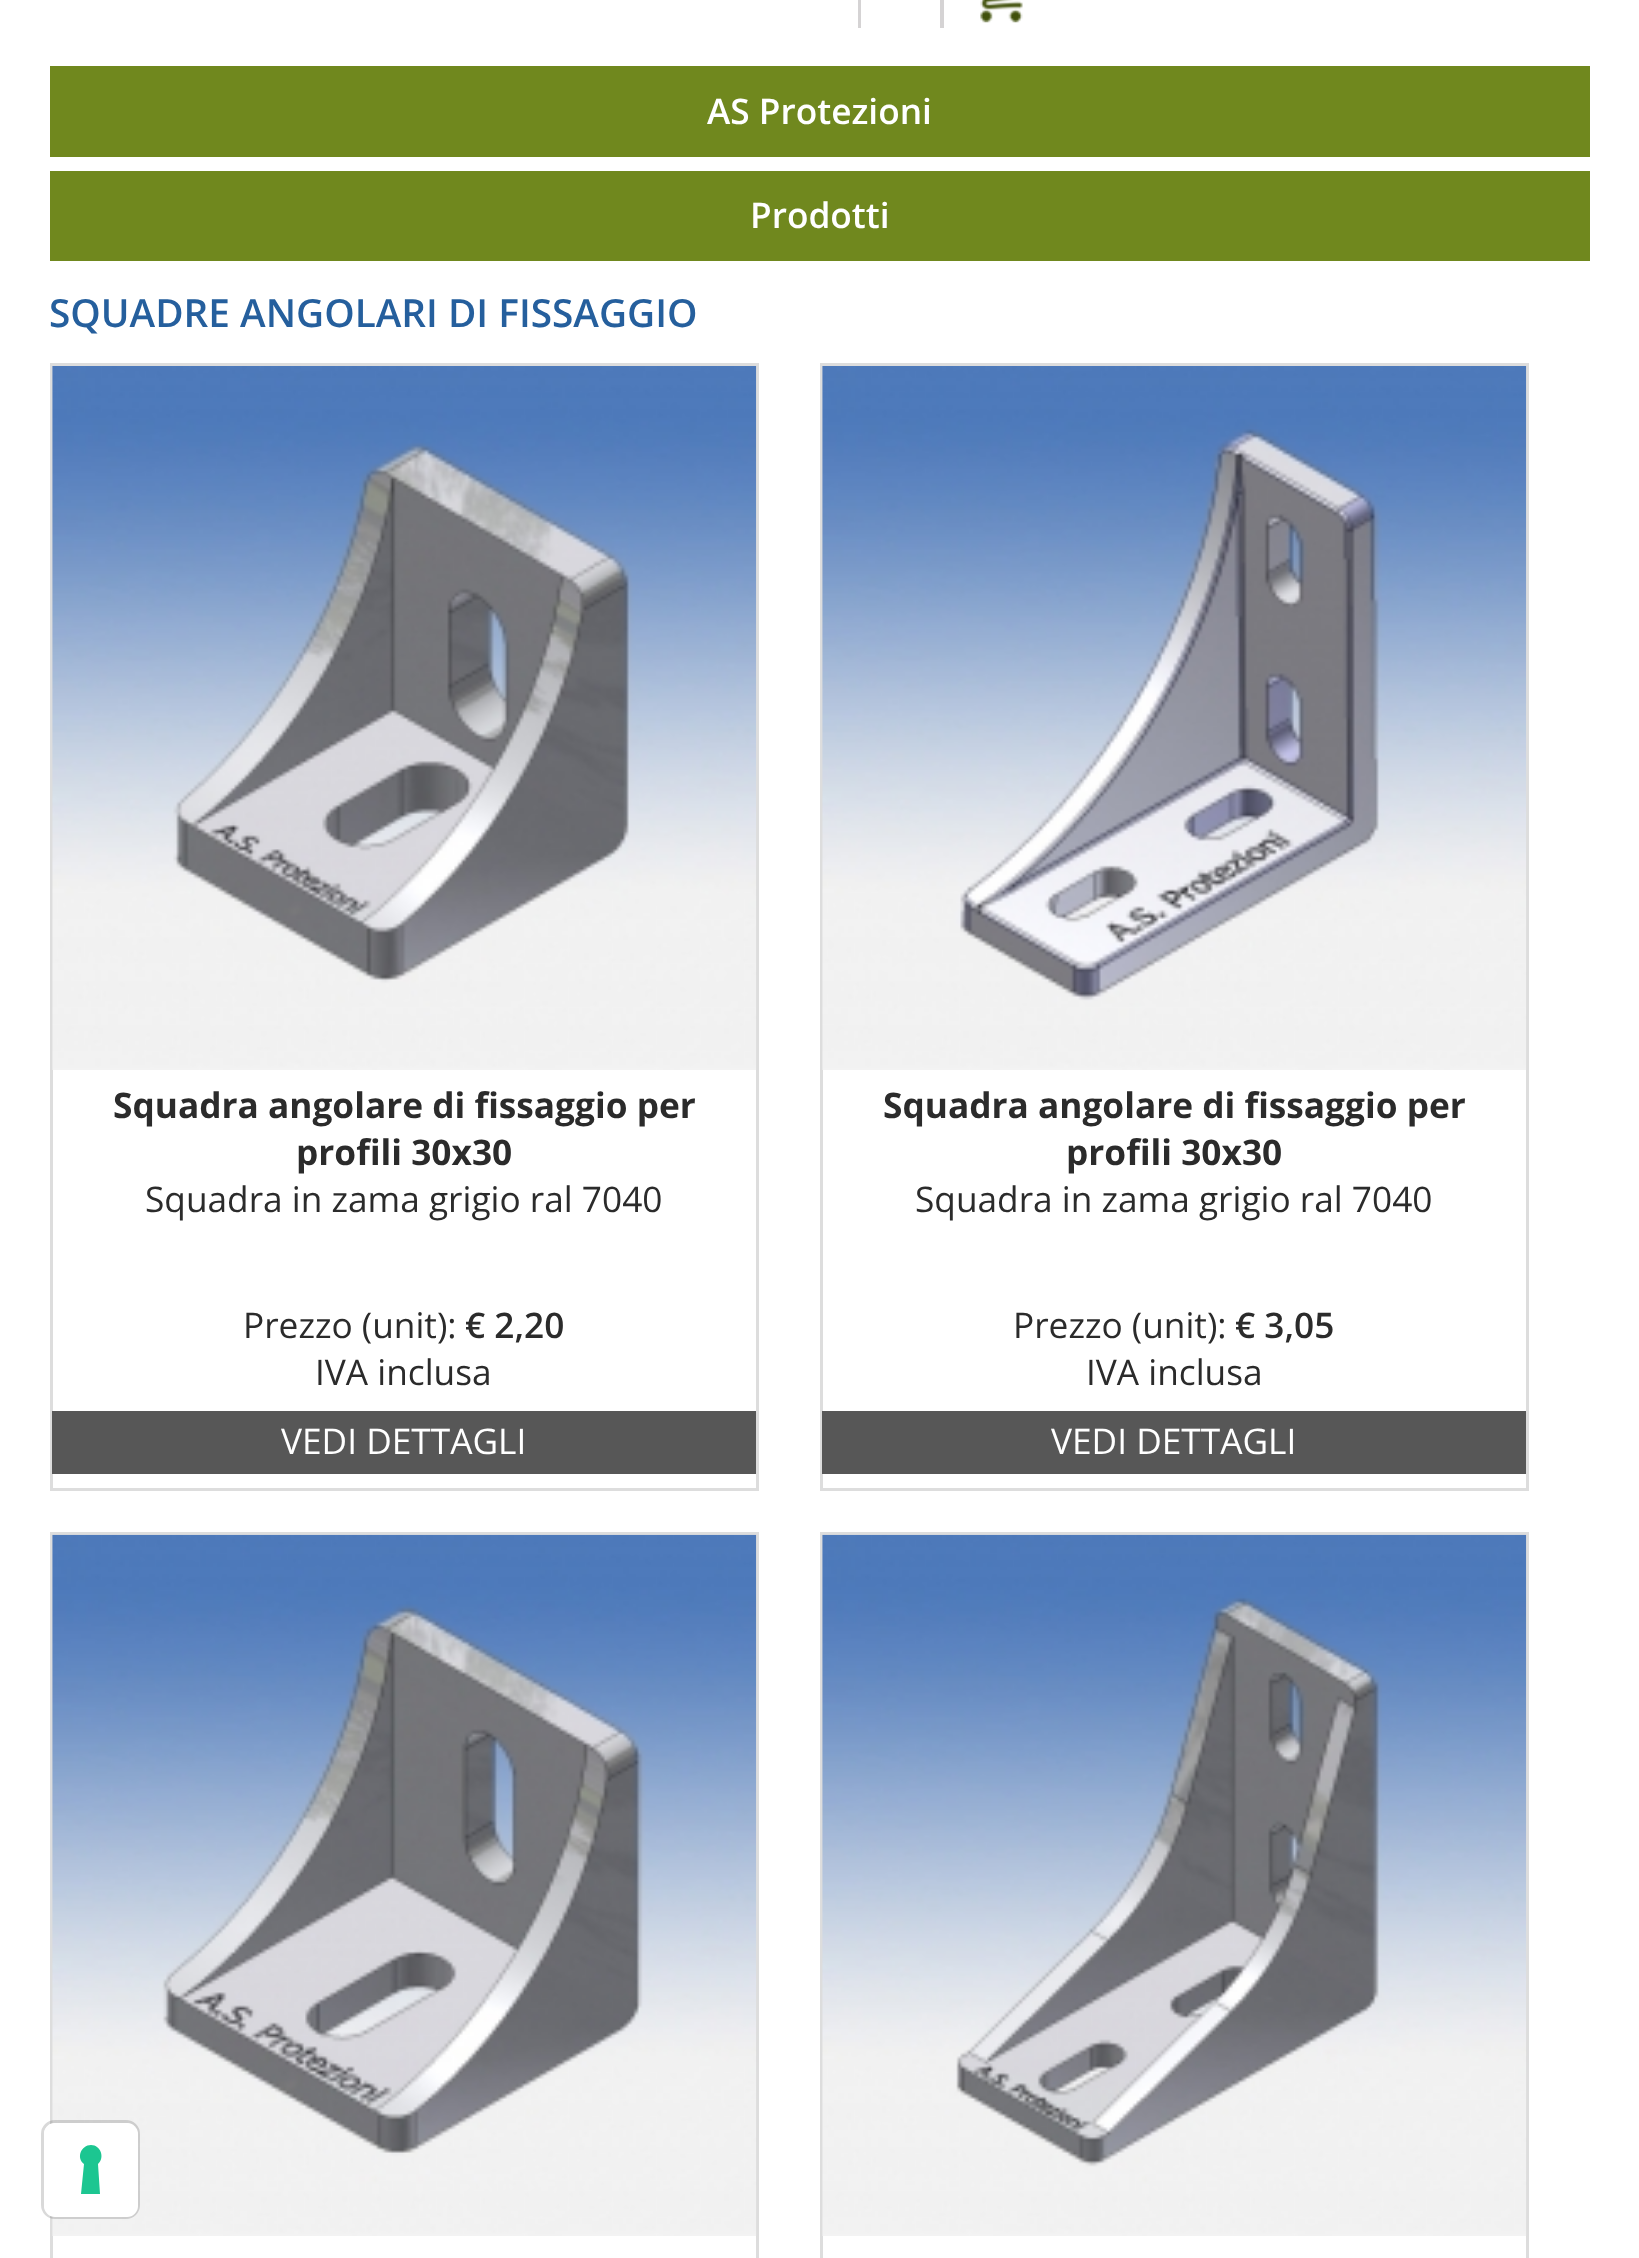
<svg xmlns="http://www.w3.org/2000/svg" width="1639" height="2258">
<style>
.a{font:600 35.25px Open Sans;fill:#fff}
.b{font:600 38.75px Open Sans;fill:#255f9d}
.c{font:bold 35.25px Open Sans;fill:#2b2b2b}
.d{font:35.25px Open Sans;fill:#2b2b2b}
.e{font:600 35.25px Open Sans;fill:#2b2b2b}
.f{font:35.25px Open Sans;fill:#fff}
</style>
<rect width="100%" height="100%" fill="#fff"/>
<path fill="#d5d3d4" d="M858 0h3v28H858z"/>
<path fill="#d5d3d4" d="M940 0h4v28H940z"/>
<image href="1.png" x="980" y="0" width="43" height="23"/>
<path fill="#70881e" d="M50 66h1540v91H50z"/>
<path fill="#70881e" d="M50 171h1540v90H50z"/>
<path fill="none" stroke="#ddd" stroke-width="3" d="M51.5 364.5h706v1125H51.5z"/>
<image href="2.png" x="52" y="366" width="705" height="704"/>
<path fill="#575757" d="M52 1411h704v63H52z"/>
<path fill="none" stroke="#ddd" stroke-width="3" d="M821.5 364.5h706v1125H821.5z"/>
<image href="3.png" x="822" y="366" width="705" height="704"/>
<path fill="#575757" d="M822 1411h704v63H822z"/>
<path fill="none" stroke="#ddd" stroke-width="3" d="M51.5 1533.5h706v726H51.5z"/>
<image href="4.png" x="52" y="1534" width="705" height="702"/>
<path fill="none" stroke="#ddd" stroke-width="3" d="M821.5 1533.5h706v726H821.5z"/>
<image href="5.png" x="822" y="1534" width="705" height="702"/>
<rect fill="none" stroke="#00000026" stroke-width="3" x="42.5" y="2121.5" width="96" height="96" rx="12.5"/>
<rect fill="#fff" x="44" y="2123" width="94" height="94" rx="11"/>
<path fill="#1cc691" fill-rule="evenodd" d="M91 2145c10 0 14 13 7 19l2 30h-19l3-30c-8-6-3-19 7-19z"/>
<text class="a" x="707" y="124">AS Protezioni</text>
<text class="a" x="750" y="228">Prodotti</text>
<text class="b" x="49" y="327">SQUADRE ANGOLARI DI FISSAGGIO</text>
<text class="c" x="113" y="1118">Squadra angolare di fissaggio per</text>
<text class="c" x="296" y="1165">profili 30x30</text>
<text class="d" x="145" y="1212">Squadra in zama grigio ral 7040</text>
<text class="d" x="243" y="1338">Prezzo (unit):</text>
<text class="e" x="465" y="1338">€ 2,20</text>
<text class="d" x="315" y="1385">IVA inclusa</text>
<text class="f" x="281" y="1454">VEDI DETTAGLI</text>
<text class="c" x="883" y="1118">Squadra angolare di fissaggio per</text>
<text class="c" x="1066" y="1165">profili 30x30</text>
<text class="d" x="915" y="1212">Squadra in zama grigio ral 7040</text>
<text class="d" x="1013" y="1338">Prezzo (unit):</text>
<text class="e" x="1235" y="1338">€ 3,05</text>
<text class="d" x="1086" y="1385">IVA inclusa</text>
<text class="f" x="1051" y="1454">VEDI DETTAGLI</text>
</svg>
